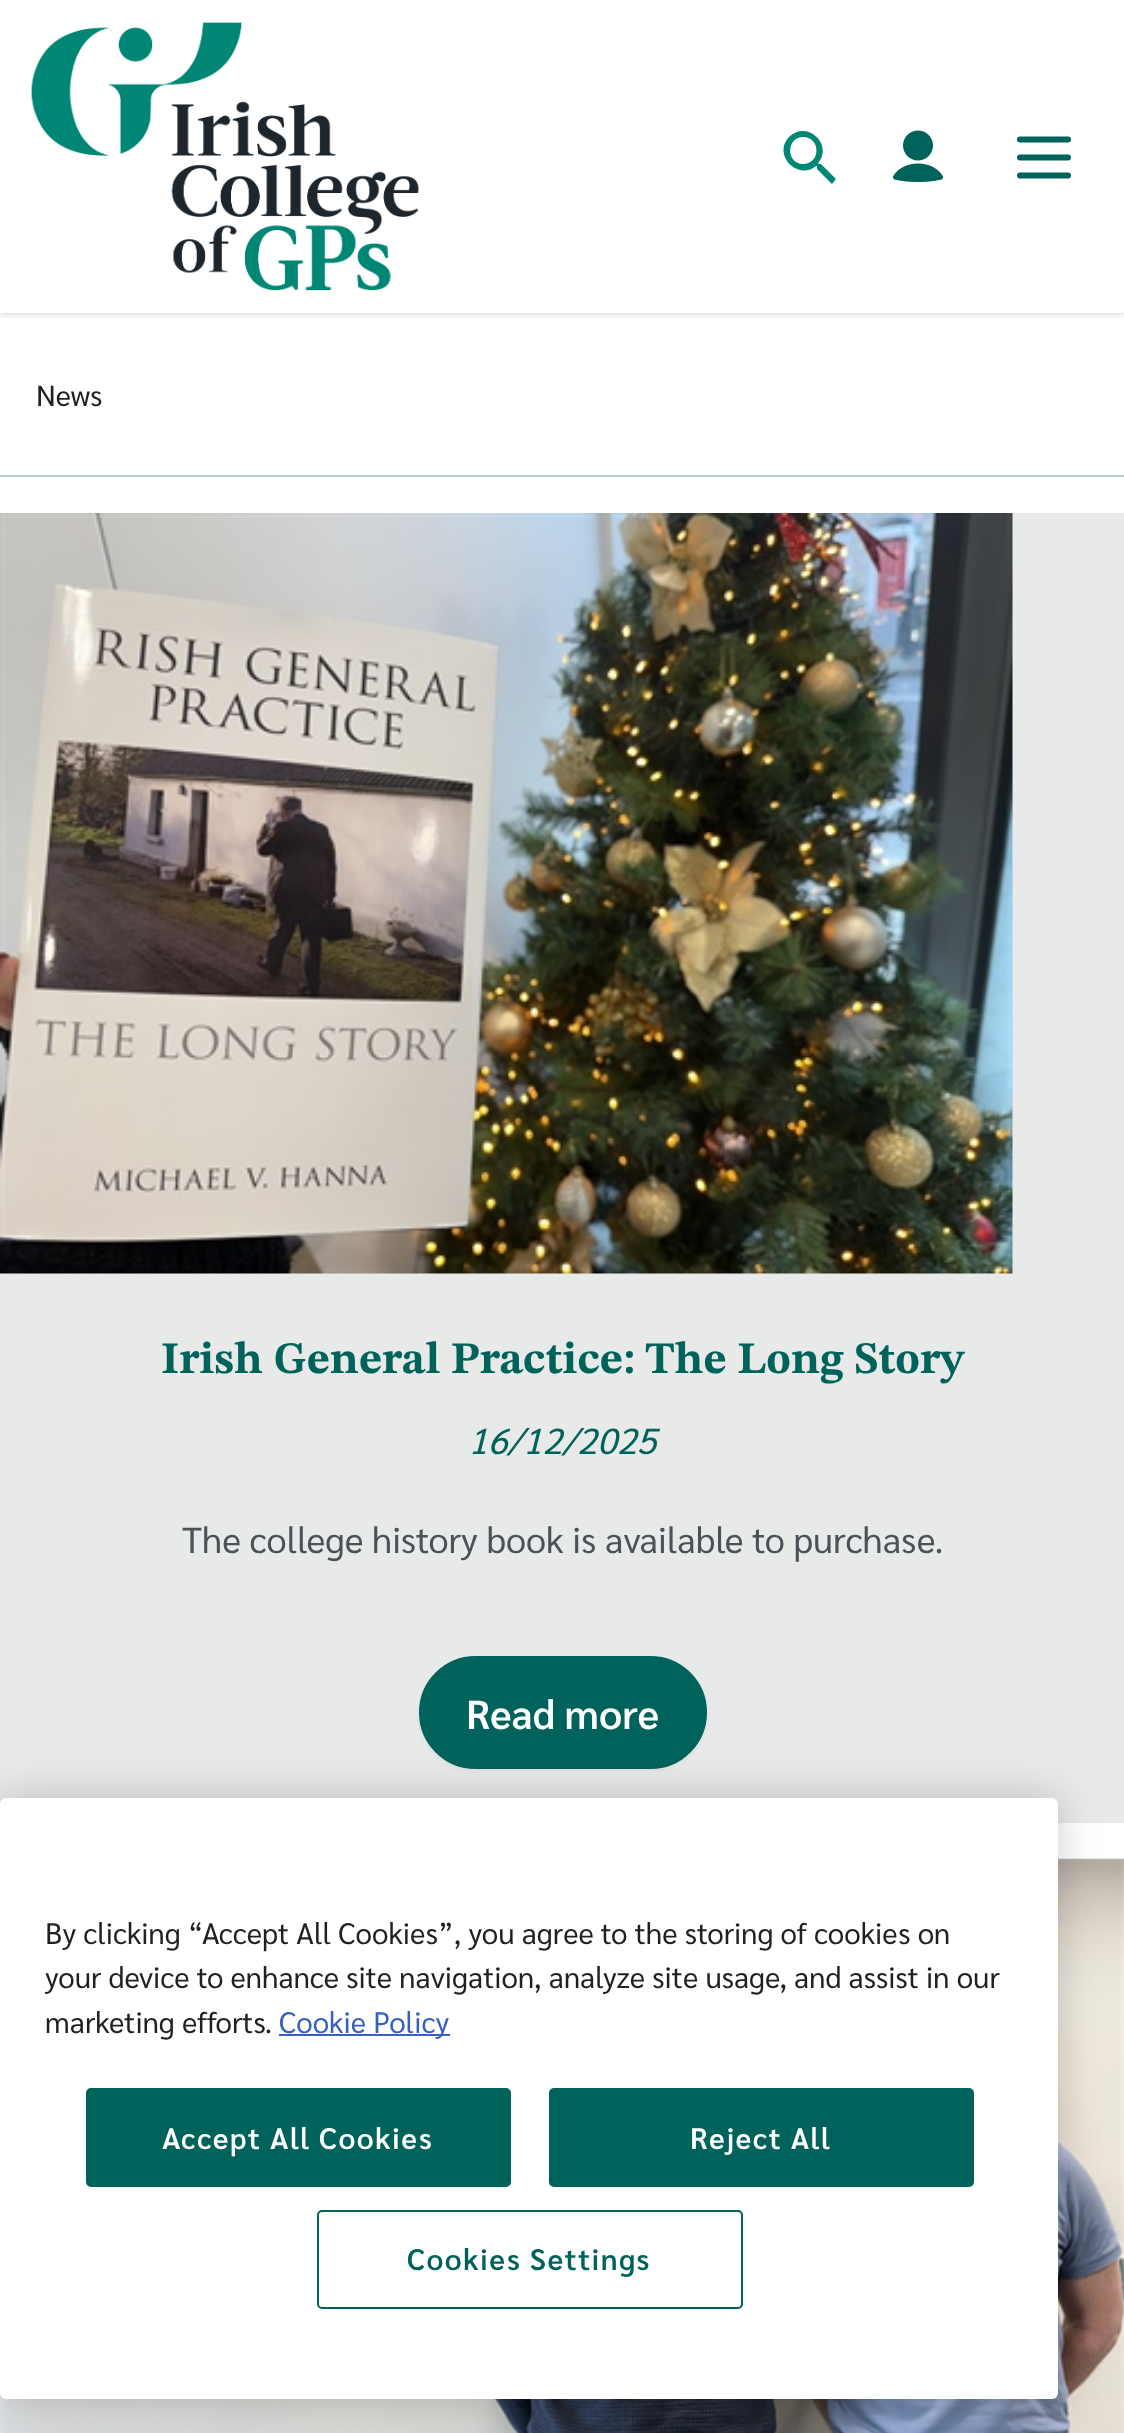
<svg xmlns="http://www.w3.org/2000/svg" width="1124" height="2433">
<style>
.a{font:29px Sarabun;fill:#231f20}
.b{font:bold 45px STIX Two Text;fill:#00635b}
.c{font:italic 36px Sarabun;fill:#00635b}
.d{font:36px Sarabun;fill:#4a5157}
.e{font:600 40.5px Sarabun;fill:#fff}
.f{font:29.5px Sarabun;fill:#231f20}
.g{font:29.5px Sarabun;fill:#3860be}
.h{font:600 29.5px Sarabun;letter-spacing:1.5px;fill:#fff}
.i{font:600 29.5px Sarabun;letter-spacing:1.5px;fill:#00635b}
</style>
<defs>
<clipPath id="clip1"><path d="M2 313h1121v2H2z"/></clipPath>
<clipPath id="clip2"><path d="M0 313h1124v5H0z"/></clipPath>
</defs>
<rect width="100%" height="100%" fill="#fff"/>
<g clip-path="url(#clip1)">
<path fill="#0000001a" filter="blur(2px)" d="M2 5h1121v308H2z"/>
</g>
<g clip-path="url(#clip2)">
<path fill="#0000001a" filter="blur(3.5px)" d="M0 2h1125v313H0z"/>
</g>
<image href="1.png" x="30" y="22" width="389" height="269"/>
<path fill="#008675" d="M821 164h-2l-1-1c16-18-11-44-29-26c-17 18 9 44 27 29h1v3l15 15l4-5zm-18 0c-17 0-17-27 0-27c18 0 18 27 0 27z"/>
<image href="2.png" x="892" y="130" width="52" height="53"/>
<path fill="none" stroke="#00635b" stroke-width="6" stroke-linecap="round" stroke-linejoin="round" d="M1020 139.5h48m-48 18h48m-48 18h48"/>
<path fill="#b3d0cc" d="M0 475h1124v2H0z"/>
<path fill="#e8e9e9" d="M0 513h1124v1310H0z"/>
<image href="3.png" x="0" y="513" width="1013" height="761"/>
<rect fill="#1018280d" filter="blur(2px)" x="419" y="1658" width="288" height="113" rx="56.5"/>
<rect fill="#00635b" stroke="#00635b" stroke-width="2" x="420" y="1657" width="286" height="111" rx="55.5"/>
<image href="4.png" x="0" y="1858" width="1124" height="575"/>
<rect fill="#00000033" filter="blur(20px)" y="1798" width="1058" height="601" rx="6"/>
<rect fill="#fff" y="1798" width="1058" height="601" rx="6"/>
<path fill="#3860be" d="M279 2034h171v2H279z"/>
<rect fill="#00635b" stroke="#00635b" stroke-width="2" x="87" y="2089" width="423" height="97" rx="4"/>
<rect fill="#00635b" stroke="#00635b" stroke-width="2" x="550" y="2089" width="423" height="97" rx="4"/>
<rect fill="none" stroke="#00635b" stroke-width="2" x="318" y="2211" width="424" height="97" rx="4"/>
<text class="a" x="36" y="406">News</text>
<text class="b" x="161" y="1373">Irish General Practice: The Long Story</text>
<text class="c" x="468" y="1454">16/12/2025</text>
<text class="d" x="182" y="1553">The college history book is available to purchase.</text>
<text class="e" x="466" y="1729">Read more</text>
<text class="f" x="45" y="1944">By clicking “Accept All Cookies”, you agree to the storing of cookies on</text>
<text class="f" x="45" y="1988">your device to enhance site navigation, analyze site usage, and assist in our</text>
<text class="f" x="45" y="2033">marketing efforts.</text>
<text class="g" x="279" y="2033">Cookie Policy</text>
<text class="h" x="162" y="2149">Accept All Cookies</text>
<text class="h" x="690" y="2149">Reject All</text>
<text class="i" x="407" y="2270">Cookies Settings</text>
</svg>
